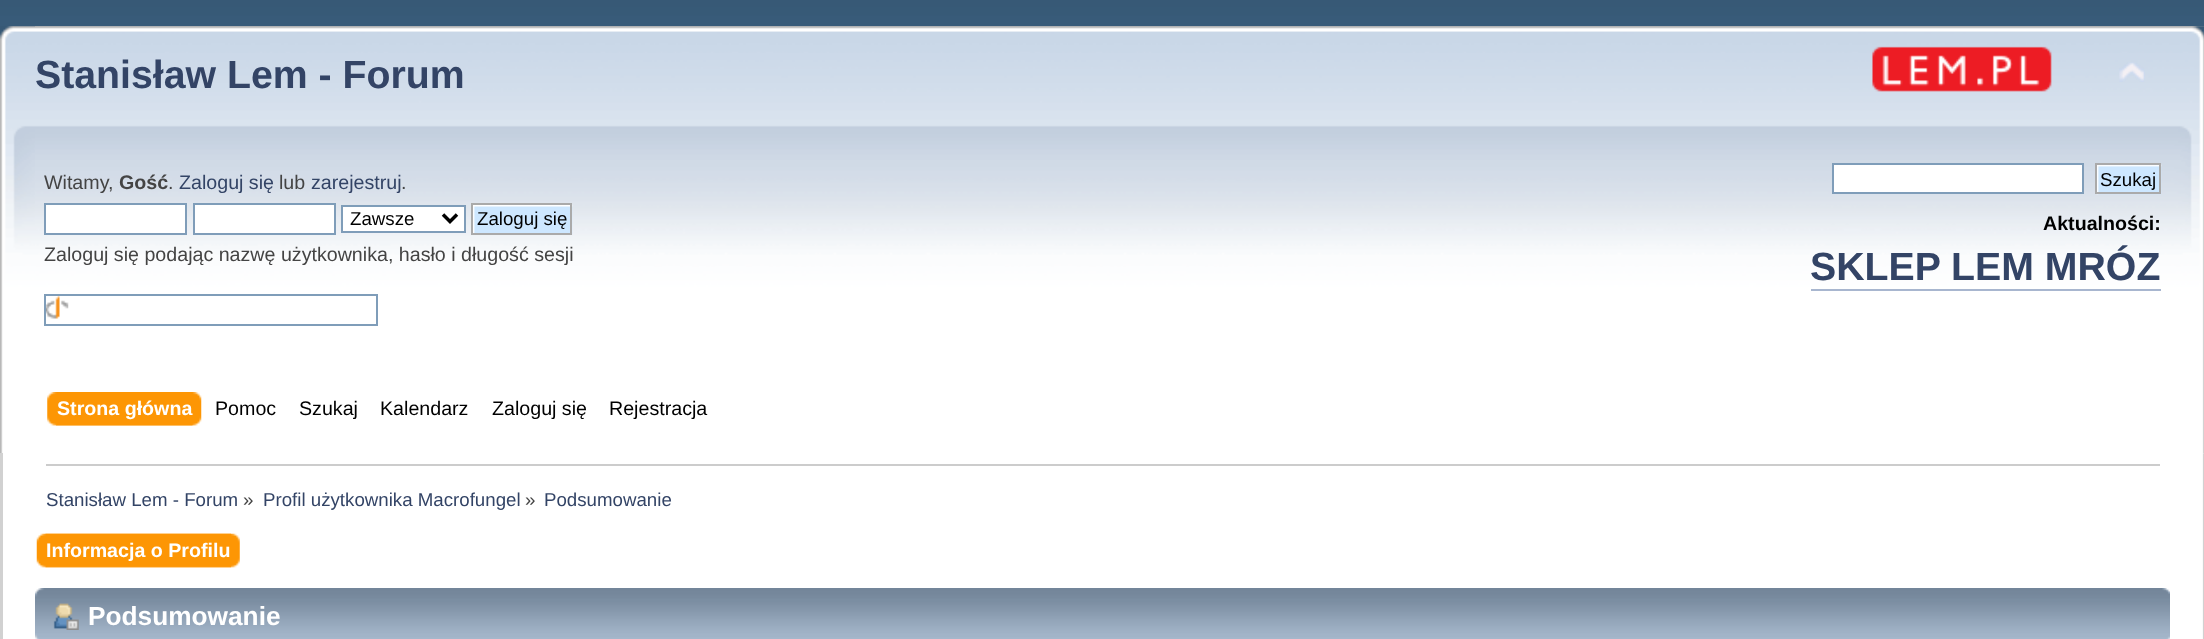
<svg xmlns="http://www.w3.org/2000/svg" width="2204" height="639">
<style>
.a{font:bold 39.25px Liberation Sans;fill:#346}
.b{font:19.65px Liberation Sans;fill:#444}
.c{font:bold 19.65px Liberation Sans;fill:#444}
.d{font:19.65px Liberation Sans;fill:#346}
.e{font:18.7px Liberation Sans;fill:#000}
.f{font:bold 19.65px Liberation Sans;fill:#000}
.g{font:bold 19.65px Liberation Sans;fill:#fff}
.h{font:19.65px Liberation Sans;fill:#000}
.i{font:18.7px Liberation Sans;fill:#346}
.j{font:18.7px Liberation Sans;fill:#444}
.k{font:bold 26.25px Liberation Sans;fill:#fff}
</style>
<rect width="100%" height="100%" fill="#fff"/>
<image href="1.png" x="0" y="0" width="2204" height="27"/>
<image href="2.png" x="0" y="26" width="2204" height="427"/>
<image href="3.png" x="35" y="26" width="2169" height="427"/>
<image href="4.png" x="1872" y="46" width="180" height="46"/>
<image href="5.png" x="2119" y="62" width="26" height="20"/>
<path fill="#fff" stroke="#7f9db9" stroke-width="2" d="M45 204h141v30H45z"/>
<path fill="#fff" stroke="#7f9db9" stroke-width="2" d="M194 204h141v30H194z"/>
<path fill="#fff" stroke="#7f9db9" stroke-width="2" d="M342 206h123v26H342z"/>
<path fill="none" stroke="#000" stroke-width="3.5" d="M443 214.5l7 7l7-7"/>
<image href="6.png" x="473" y="204" width="100" height="31"/>
<path fill="none" stroke="#aaa" stroke-width="2" d="M472 204h99v30H472z"/>
<image href="7.png" x="46" y="296" width="23" height="23"/>
<path fill="none" stroke="#7f9db9" stroke-width="2" d="M45 295h332v30H45z"/>
<path fill="#fff" stroke="#7f9db9" stroke-width="2" d="M1833 164h250v29H1833z"/>
<image href="8.png" x="2096" y="164" width="66" height="31"/>
<path fill="none" stroke="#aaa" stroke-width="2" d="M2096 164h64v29H2096z"/>
<path fill="#a8b6cf" d="M1811 289h350v2H1811z"/>
<image href="9.png" x="56" y="392" width="146" height="34"/>
<image href="10.png" x="47" y="392" width="146" height="34"/>
<path fill="#d1d1d1" d="M0 453h3v186H0z"/>
<image href="11.png" x="2202" y="453" width="2" height="186"/>
<path fill="#ccc" d="M46 464h2114v2H46z"/>
<image href="12.png" x="45" y="533" width="195" height="35"/>
<image href="13.png" x="36" y="533" width="195" height="35"/>
<image href="14.png" x="35" y="588" width="2127" height="51"/>
<image href="15.png" x="2162" y="588" width="8" height="51"/>
<image href="16.png" x="53" y="603" width="26" height="27"/>
<text class="a" x="35" y="88">Stanisław Lem - Forum</text>
<text class="b" x="44" y="189">Witamy,</text>
<text class="c" x="119" y="189">Gość</text>
<text class="b" x="168" y="189">.</text>
<text class="d" x="179" y="189">Zaloguj się</text>
<text class="b" x="279" y="189">lub</text>
<text class="d" x="311" y="189">zarejestruj</text>
<text class="b" x="401" y="189">.</text>
<text class="e" x="350" y="225">Zawsze</text>
<text class="e" x="477" y="225">Zaloguj się</text>
<text class="b" x="44" y="261">Zaloguj się podając nazwę użytkownika, hasło i długość sesji</text>
<text class="e" x="2100" y="186">Szukaj</text>
<text class="f" x="2043" y="230">Aktualności:</text>
<text class="a" x="1810" y="280">SKLEP LEM MRÓZ</text>
<text class="g" x="57" y="415">Strona główna</text>
<text class="h" x="215" y="415">Pomoc</text>
<text class="h" x="299" y="415">Szukaj</text>
<text class="h" x="380" y="415">Kalendarz</text>
<text class="h" x="492" y="415">Zaloguj się</text>
<text class="h" x="609" y="415">Rejestracja</text>
<text class="i" x="46" y="506">Stanisław Lem - Forum</text>
<text class="j" x="243" y="506">»</text>
<text class="i" x="263" y="506">Profil użytkownika Macrofungel</text>
<text class="j" x="525" y="506">»</text>
<text class="i" x="544" y="506">Podsumowanie</text>
<text class="g" x="46" y="557">Informacja o Profilu</text>
<text class="k" x="88" y="625">Podsumowanie</text>
</svg>
